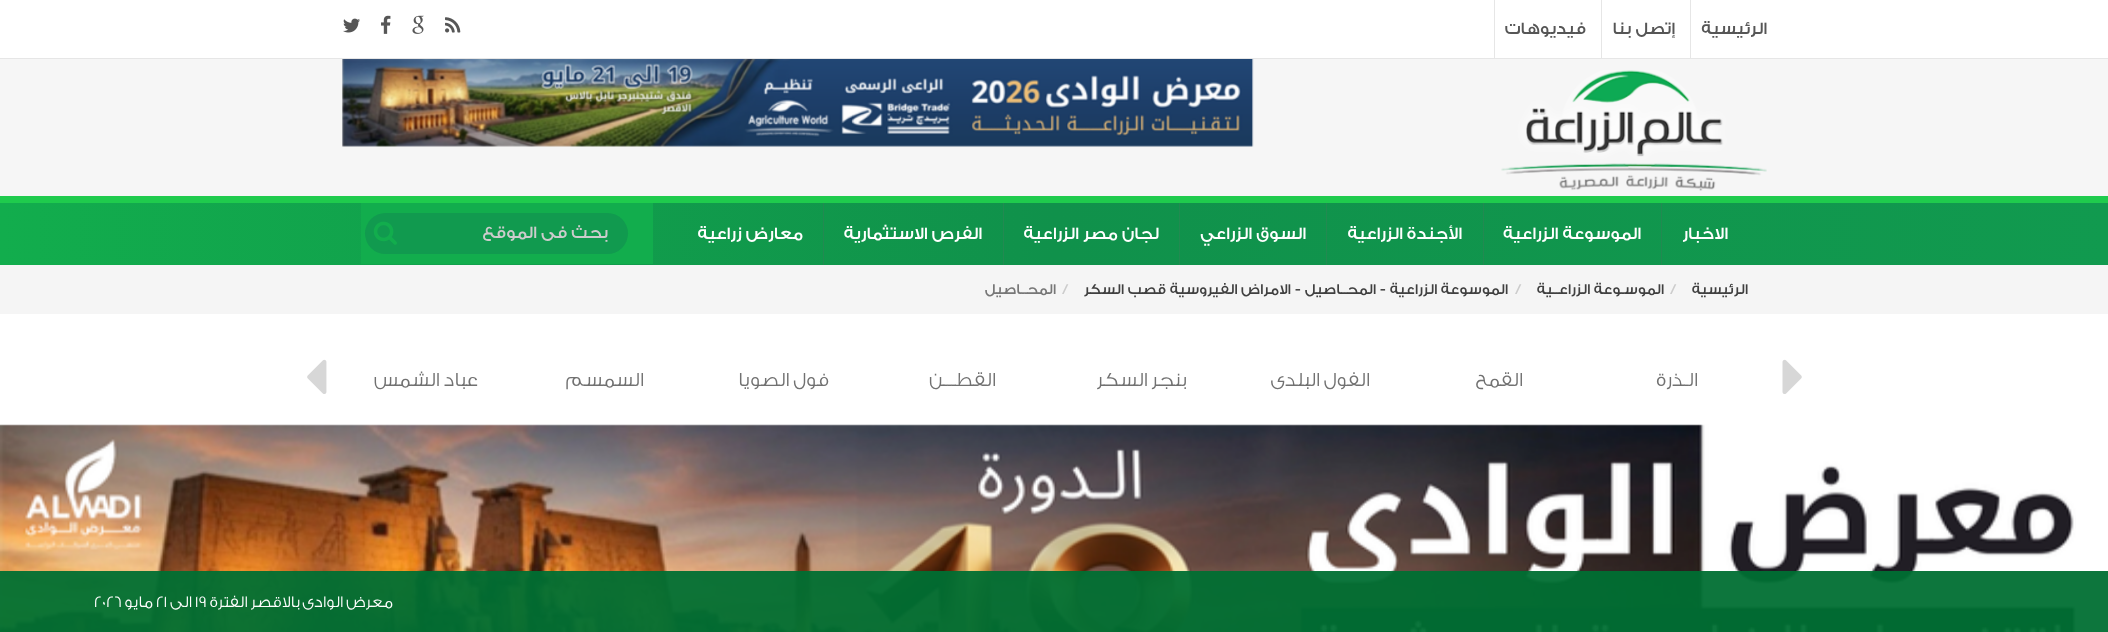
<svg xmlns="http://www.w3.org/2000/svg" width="2108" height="632">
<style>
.a{font:500 17.5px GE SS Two;direction:rtl;fill:#565656}
.b{font:500 17.5px GE SS Two;direction:rtl;fill:#fff}
.c{font:500 17.5px GE SS Two;direction:rtl;fill:#ccc}
.d{font:500 15px GE SS Two;direction:rtl;fill:#404040}
.e{font:500 15px GE SS Two;fill:#ccc}
.f{font:500 15px GE SS Two;direction:rtl;fill:#777}
.g{font:300 20px GE SS Two;direction:rtl;fill:#717171}
.h{font:300 16.25px GE SS Two;direction:rtl;fill:#fff}
.i{font:300 16.25px GE SS Two;fill:#fff}
</style>
<defs>
<linearGradient id="g1" gradientUnits="userSpaceOnUse" x1="0" y1="234" x2="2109" y2="234"><stop offset="0" stop-color="#12ad4d"/><stop offset="0.5" stop-color="#10914b"/><stop offset="1" stop-color="#119a4f"/></linearGradient>
</defs>
<rect width="100%" height="100%" fill="#fff"/>
<path fill="#e6e6e6" d="M0 58h2108v1H0z"/>
<path fill="#e6e6e6" d="M1690 0h1v58H1690z"/>
<path fill="#e6e6e6" d="M1601 0h1v58H1601z"/>
<path fill="#e6e6e6" d="M1494 0h1v58H1494z"/>
<image href="1.png" x="445" y="17" width="16" height="16"/>
<image href="2.png" x="412" y="15" width="12" height="19"/>
<image href="3.png" x="381" y="15" width="10" height="19"/>
<image href="4.png" x="343" y="18" width="17" height="15"/>
<path fill="#f6f6f6" d="M0 59h2108v137H0z"/>
<image href="5.png" x="1501" y="70" width="266" height="121"/>
<image href="6.png" x="342" y="59" width="912" height="88"/>
<path fill="url(#g1)" d="M0 203h2108v62H0z"/>
<path fill="#1fcb4d" d="M0 196h2108v7H0z"/>
<path fill="#228a51" d="M1661 203h1v62H1661z"/>
<path fill="#228a51" d="M1483 203h1v62H1483z"/>
<path fill="#228a51" d="M1326 203h1v62H1326z"/>
<path fill="#228a51" d="M1179 203h1v62H1179z"/>
<path fill="#228a51" d="M1003 203h1v62H1003z"/>
<path fill="#228a51" d="M823 203h1v62H823z"/>
<path fill="#12ad4d" d="M361 203h292v61H361z"/>
<rect fill="#119a4f" x="365" y="213" width="263" height="41" rx="20.5"/>
<image href="7.png" x="373" y="221" width="24" height="24"/>
<path fill="#f5f5f5" d="M0 265h2108v49H0z"/>
<image href="8.png" x="1782" y="359" width="20" height="35"/>
<image href="9.png" x="307" y="359" width="20" height="35"/>
<image href="10.png" x="0" y="424" width="2076" height="208"/>
<path fill="#006f33f2" d="M0 571h2108v61H0z"/>
<text class="a" x="1767" y="34">الرئيسية</text>
<text class="a" x="1675" y="34">إتصل بنا</text>
<text class="a" x="1586" y="34">فيديوهات</text>
<text class="b" x="1728" y="239">الاخبار</text>
<text class="b" x="1641" y="239">الموسوعة الزراعية</text>
<text class="b" x="1462" y="239">الأجندة الزراعية</text>
<text class="b" x="1306" y="239">السوق الزراعي</text>
<text class="b" x="1159" y="239">لجان مصر الزراعية</text>
<text class="b" x="982" y="239">الفرص الاستثمارية</text>
<text class="b" x="803" y="239">معارض زراعية</text>
<text class="c" x="608" y="238">بحث فى الموقع</text>
<text class="d" x="1748" y="294">الرئيسية</text>
<text class="e" x="1670" y="294">/</text>
<text class="d" x="1664" y="294">الموسـوعة الزراعــية</text>
<text class="e" x="1515" y="294">/</text>
<text class="d" x="1508" y="294">الموسوعة الزراعية - المحــاصيل - الامراض الفيروسية قصب السكر</text>
<text class="e" x="1062" y="294">/</text>
<text class="f" x="1056" y="294">المحــاصيل</text>
<text class="g" x="1698" y="386">الـذرة</text>
<text class="g" x="1523" y="386">القمح</text>
<text class="g" x="1370" y="386">الفول البلدى</text>
<text class="g" x="1186" y="386">بنجر السكر</text>
<text class="g" x="996" y="386">القطـــن</text>
<text class="g" x="829" y="386">فول الصويا</text>
<text class="g" x="644" y="386">السمسم</text>
<text class="g" x="478" y="386">عباد الشمس</text>
<text class="h" x="393" y="607">معرض الوادى بالاقصر الفترة</text>
<text class="i" x="195" y="607">19</text>
<text class="h" x="192" y="607">الى</text>
<text class="i" x="156" y="607">21</text>
<text class="h" x="153" y="607">مايو</text>
<text class="i" x="94" y="607">2026</text>
</svg>
